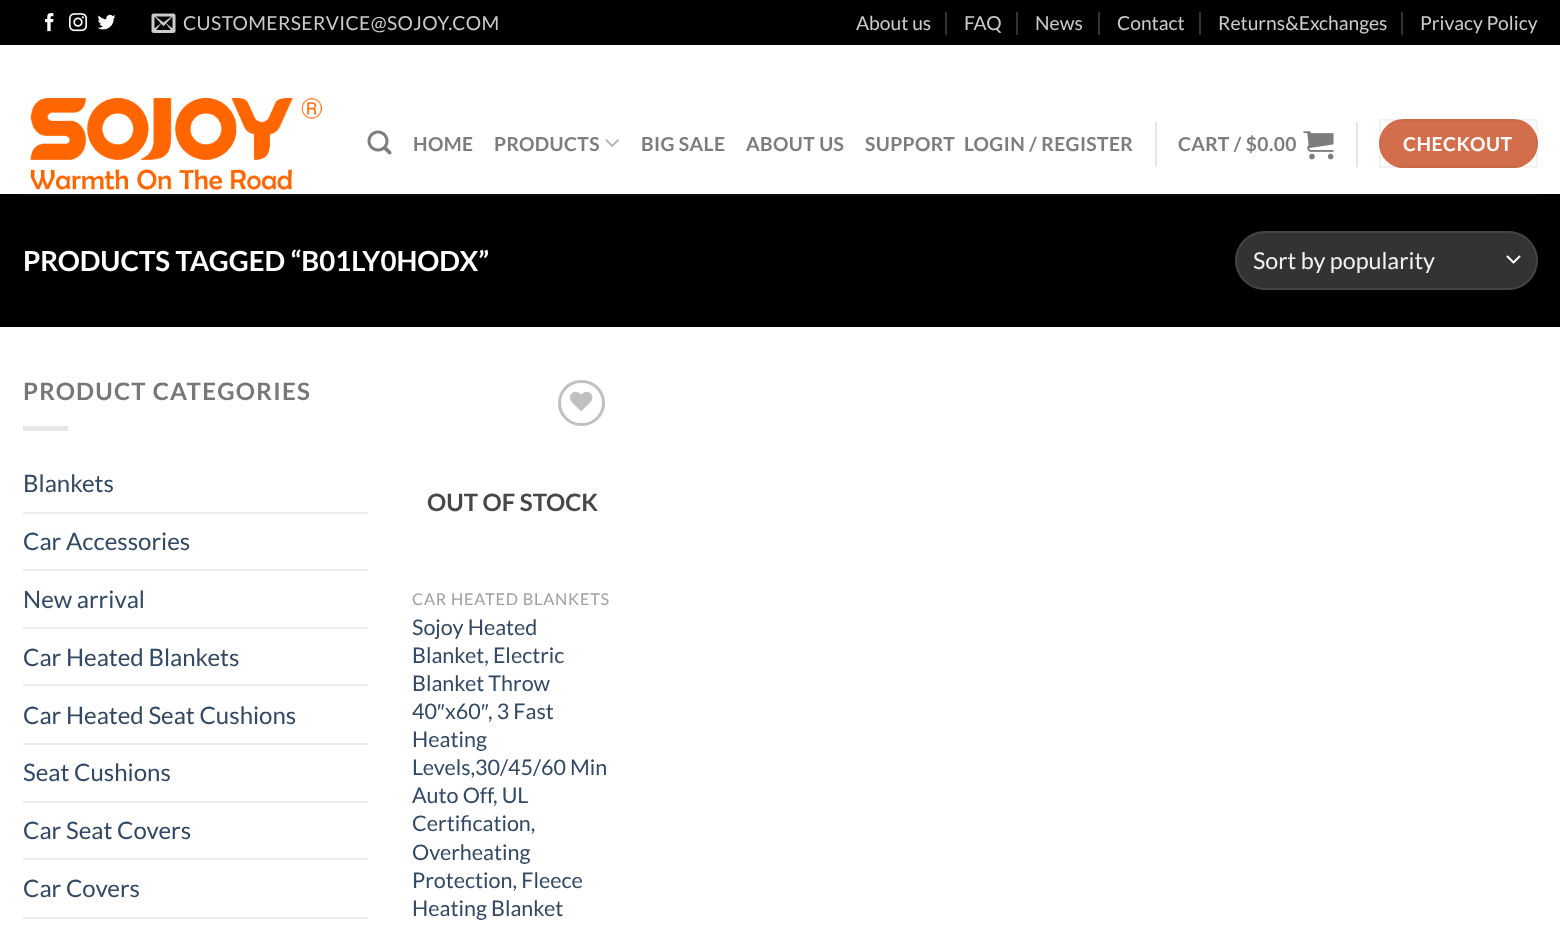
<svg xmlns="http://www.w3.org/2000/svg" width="1560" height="934">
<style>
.a{font:19.25px Lato;letter-spacing:0.4px;fill:#ccc}
.b{font:19.25px Lato;fill:#ccc}
.c{font:bold 19.25px Lato;letter-spacing:0.4px;fill:#7d7d7d}
.d{font:bold 19.25px Lato;letter-spacing:0.5px;fill:#fff}
.e{font:bold 27.6px Lato;fill:#fff}
.f{font:23.25px Lato;fill:#f1f1f1}
.g{font:bold 24px Lato;letter-spacing:1.25px;fill:#777}
.h{font:24px Lato;fill:#334862}
.i{font:bold 24px Lato;fill:#474747}
.j{font:16.25px Lato;letter-spacing:0.8px;fill:#a0a0a0}
.k{font:21.5px Lato;fill:#334862}
.l{font:21.5px Liberation Sans;fill:#334862}
</style>
<rect width="100%" height="100%" fill="#fff"/>
<path fill="#000" d="M0 0h1560v45H0z"/>
<image href="1.png" x="45" y="13" width="9" height="19"/>
<image href="2.png" x="69" y="13" width="18" height="19"/>
<image href="3.png" x="97" y="14" width="19" height="16"/>
<image href="4.png" x="151" y="13" width="25" height="20"/>
<path fill="#333" d="M945 12h2v23H945z"/>
<path fill="#333" d="M1016 12h2v23H1016z"/>
<path fill="#333" d="M1098 12h2v23H1098z"/>
<path fill="#333" d="M1199 12h2v23H1199z"/>
<path fill="#333" d="M1401 12h2v23H1401z"/>
<image href="5.png" x="30" y="98" width="293" height="92"/>
<image href="6.png" x="367" y="130" width="25" height="25"/>
<image href="7.png" x="605" y="139" width="14" height="8"/>
<path fill="#e6e6e6" d="M1155 122h2v45H1155z"/>
<image href="8.png" x="1303" y="131" width="31" height="29"/>
<path fill="#e6e6e6" d="M1356 122h2v45H1356z"/>
<rect fill="#d26e4b" x="1379" y="119" width="159" height="49" rx="24.5"/>
<path fill="none" stroke="#0000000d" stroke-width="2" d="M1380 120h157v47H1380z"/>
<path fill="#000" d="M0 194h1560v133H0z"/>
<path fill="#0c0c0c" d="M23 194h1515v2H23z"/>
<rect fill="#333" x="1235" y="231" width="303" height="59" rx="29.5"/>
<path fill="none" stroke="#fff" stroke-width="2" stroke-linecap="round" stroke-linejoin="round" d="M1507.5 256.5l6 6l6-6"/>
<rect fill="none" stroke="#ffffff17" stroke-width="2" x="1236" y="232" width="301" height="57" rx="28.5"/>
<path fill="#e6e6e6" d="M23 426h45v5H23z"/>
<path fill="#ececec" d="M23 512h345v2H23z"/>
<path fill="#ececec" d="M23 569h345v2H23z"/>
<path fill="#ececec" d="M23 627h345v2H23z"/>
<path fill="#ececec" d="M23 684h345v2H23z"/>
<path fill="#ececec" d="M23 743h345v2H23z"/>
<path fill="#ececec" d="M23 801h345v2H23z"/>
<path fill="#ececec" d="M23 858h345v2H23z"/>
<path fill="#ececec" d="M23 917h345v2H23z"/>
<rect fill="none" stroke="#c0c0c0" stroke-width="3" x="559.5" y="381.5" width="44" height="43" rx="21.5"/>
<image href="9.png" x="570" y="391" width="23" height="20"/>
<text class="a" x="183" y="30">CUSTOMERSERVICE@SOJOY.COM</text>
<text class="b" x="856" y="30">About us</text>
<text class="b" x="964" y="30">FAQ</text>
<text class="b" x="1035" y="30">News</text>
<text class="b" x="1117" y="30">Contact</text>
<text class="b" x="1218" y="30">Returns&amp;Exchanges</text>
<text class="b" x="1420" y="30">Privacy Policy</text>
<text class="c" x="413" y="151">HOME</text>
<text class="c" x="494" y="151">PRODUCTS</text>
<text class="c" x="641" y="151">BIG SALE</text>
<text class="c" x="746" y="151">ABOUT US</text>
<text class="c" x="865" y="151">SUPPORT</text>
<text class="c" x="964" y="151">LOGIN / REGISTER</text>
<text class="c" x="1178" y="151">CART / $0.00</text>
<text class="d" x="1403" y="151">CHECKOUT</text>
<text class="e" x="23" y="271">PRODUCTS TAGGED “B01LY0HODX”</text>
<text class="f" x="1253" y="269">Sort by popularity</text>
<text class="g" x="23" y="400">PRODUCT CATEGORIES</text>
<text class="h" x="23" y="492">Blankets</text>
<text class="h" x="23" y="550">Car Accessories</text>
<text class="h" x="23" y="608">New arrival</text>
<text class="h" x="23" y="666">Car Heated Blankets</text>
<text class="h" x="23" y="724">Car Heated Seat Cushions</text>
<text class="h" x="23" y="781">Seat Cushions</text>
<text class="h" x="23" y="839">Car Seat Covers</text>
<text class="h" x="23" y="897">Car Covers</text>
<text class="i" x="427" y="511">OUT OF STOCK</text>
<text class="j" x="412" y="605">CAR HEATED BLANKETS</text>
<text class="k" x="412" y="635">Sojoy Heated</text>
<text class="k" x="412" y="663">Blanket, Electric</text>
<text class="k" x="412" y="691">Blanket Throw</text>
<text class="k" x="412" y="719">40</text>
<text class="l" x="437" y="719">″</text>
<text class="k" x="445" y="719">x60</text>
<text class="l" x="481" y="719">″</text>
<text class="k" x="488" y="719">, 3 Fast</text>
<text class="k" x="412" y="747">Heating</text>
<text class="k" x="412" y="775">Levels,30/45/60 Min</text>
<text class="k" x="412" y="803">Auto Off, UL</text>
<text class="k" x="412" y="831">Certification,</text>
<text class="k" x="412" y="860">Overheating</text>
<text class="k" x="412" y="888">Protection, Fleece</text>
<text class="k" x="412" y="916">Heating Blanket</text>
</svg>
